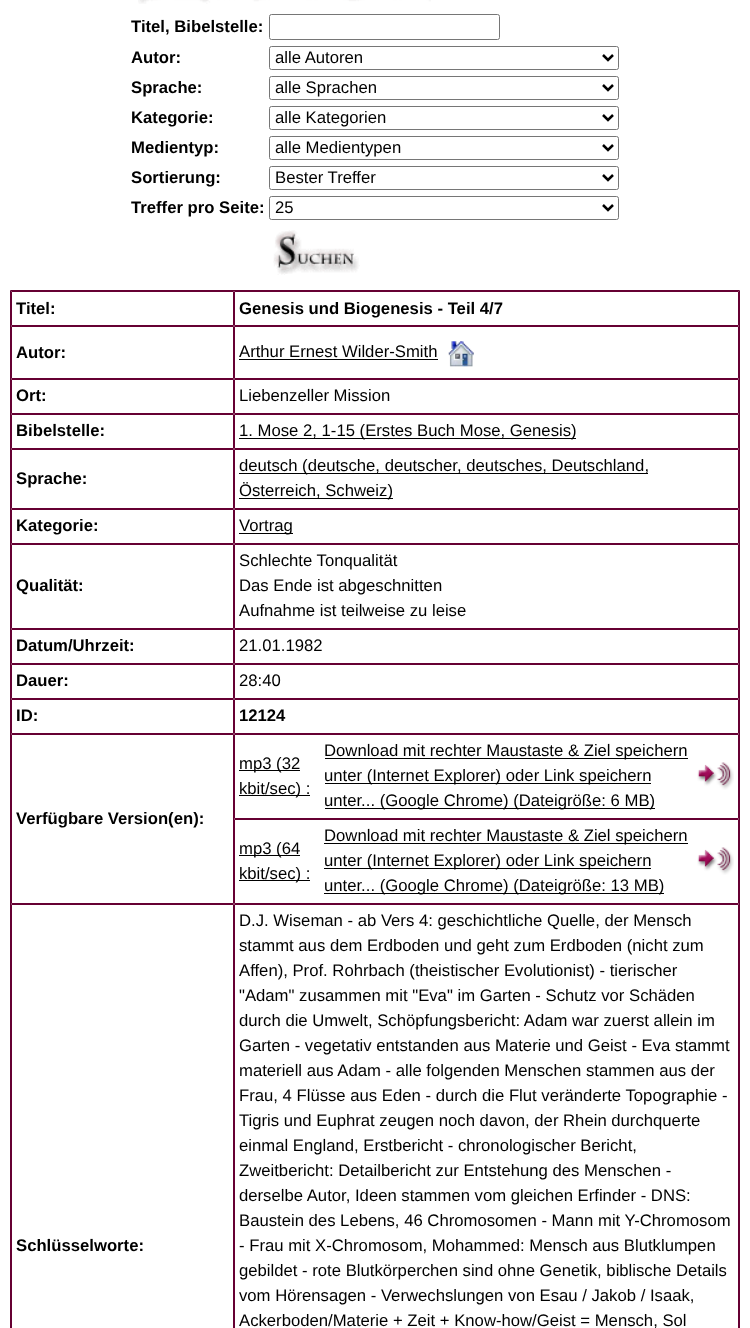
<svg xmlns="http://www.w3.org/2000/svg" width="750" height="1328">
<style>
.a{font:bold 16.7px Liberation Sans;fill:#000}
.b{font:16.7px Liberation Sans;fill:#000}
</style>
<rect width="100%" height="100%" fill="#fff"/>
<image href="1.png" x="138" y="0" width="293" height="4"/>
<rect fill="none" stroke="#767676" x="269.5" y="14.5" width="230" height="25" rx="2"/>
<rect fill="none" stroke="#767676" x="269.5" y="46.5" width="349" height="23" rx="2"/>
<path fill="none" stroke="#000" stroke-width="2.5" d="M603 55l5 5l5-5"/>
<rect fill="none" stroke="#767676" x="269.5" y="76.5" width="349" height="23" rx="2"/>
<path fill="none" stroke="#000" stroke-width="2.5" d="M603 85l5 5l5-5"/>
<rect fill="none" stroke="#767676" x="269.5" y="106.5" width="349" height="23" rx="2"/>
<path fill="none" stroke="#000" stroke-width="2.5" d="M603 115l5 5l5-5"/>
<rect fill="none" stroke="#767676" x="269.5" y="136.5" width="349" height="23" rx="2"/>
<path fill="none" stroke="#000" stroke-width="2.5" d="M603 145l5 5l5-5"/>
<rect fill="none" stroke="#767676" x="269.5" y="166.5" width="349" height="23" rx="2"/>
<path fill="none" stroke="#000" stroke-width="2.5" d="M603 175l5 5l5-5"/>
<rect fill="none" stroke="#767676" x="269.5" y="196.5" width="349" height="23" rx="2"/>
<path fill="none" stroke="#000" stroke-width="2.5" d="M603 205l5 5l5-5"/>
<image href="2.png" x="273" y="230" width="87" height="45"/>
<path fill="none" stroke="#603" d="M10.5 290.5h729v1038H10.5z"/>
<path fill="none" stroke="#603" d="M11.5 291.5h222v34H11.5z"/>
<path fill="none" stroke="#603" d="M234.5 291.5h504v34H234.5z"/>
<path fill="none" stroke="#603" d="M11.5 326.5h222v52H11.5z"/>
<path fill="none" stroke="#603" d="M234.5 326.5h504v52H234.5z"/>
<path fill="#000" d="M239 359h199v1H239z"/>
<image href="3.png" x="448" y="341" width="26" height="26"/>
<path fill="none" stroke="#603" d="M11.5 379.5h222v34H11.5z"/>
<path fill="none" stroke="#603" d="M234.5 379.5h504v34H234.5z"/>
<path fill="none" stroke="#603" d="M11.5 414.5h222v34H11.5z"/>
<path fill="none" stroke="#603" d="M234.5 414.5h504v34H234.5z"/>
<path fill="#000" d="M239 438h337v1H239z"/>
<path fill="none" stroke="#603" d="M11.5 449.5h222v59H11.5z"/>
<path fill="none" stroke="#603" d="M234.5 449.5h504v59H234.5z"/>
<path fill="#000" d="M239 473h409v1H239z"/>
<path fill="#000" d="M239 498h154v1H239z"/>
<path fill="none" stroke="#603" d="M11.5 509.5h222v34H11.5z"/>
<path fill="none" stroke="#603" d="M234.5 509.5h504v34H234.5z"/>
<path fill="#000" d="M239 533h54v1H239z"/>
<path fill="none" stroke="#603" d="M11.5 544.5h222v84H11.5z"/>
<path fill="none" stroke="#603" d="M234.5 544.5h504v84H234.5z"/>
<path fill="none" stroke="#603" d="M11.5 629.5h222v34H11.5z"/>
<path fill="none" stroke="#603" d="M234.5 629.5h504v34H234.5z"/>
<path fill="none" stroke="#603" d="M11.5 664.5h222v34H11.5z"/>
<path fill="none" stroke="#603" d="M234.5 664.5h504v34H234.5z"/>
<path fill="none" stroke="#603" d="M11.5 699.5h222v34H11.5z"/>
<path fill="none" stroke="#603" d="M234.5 699.5h504v34H234.5z"/>
<path fill="none" stroke="#603" d="M234.5 734.5h504v84H234.5z"/>
<path fill="#000" d="M239 770h61v1H239z"/>
<path fill="#000" d="M239 795h71v1H239z"/>
<path fill="#000" d="M325 758h363v1H325z"/>
<path fill="#000" d="M325 783h326v1H325z"/>
<path fill="#000" d="M325 808h330v1H325z"/>
<image href="4.png" x="697" y="762" width="37" height="28"/>
<path fill="none" stroke="#603" d="M11.5 734.5h222v169H11.5z"/>
<path fill="none" stroke="#603" d="M234.5 819.5h504v84H234.5z"/>
<path fill="#000" d="M239 855h61v1H239z"/>
<path fill="#000" d="M239 880h71v1H239z"/>
<path fill="#000" d="M324 843h364v1H324z"/>
<path fill="#000" d="M324 868h327v1H324z"/>
<path fill="#000" d="M324 893h340v1H324z"/>
<image href="4.png" x="697" y="847" width="37" height="28"/>
<path fill="none" stroke="#603" d="M11.5 904.5h222v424H11.5z"/>
<path fill="none" stroke="#603" d="M234.5 904.5h504v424H234.5z"/>
<text class="a" x="131" y="32">Titel, Bibelstelle:</text>
<text class="a" x="131" y="63">Autor:</text>
<text class="b" x="275" y="63">alle Autoren</text>
<text class="a" x="131" y="93">Sprache:</text>
<text class="b" x="275" y="93">alle Sprachen</text>
<text class="a" x="131" y="123">Kategorie:</text>
<text class="b" x="275" y="123">alle Kategorien</text>
<text class="a" x="131" y="153">Medientyp:</text>
<text class="b" x="275" y="153">alle Medientypen</text>
<text class="a" x="131" y="183">Sortierung:</text>
<text class="b" x="275" y="183">Bester Treffer</text>
<text class="a" x="131" y="213">Treffer pro Seite:</text>
<text class="b" x="275" y="213">25</text>
<text class="a" x="16" y="314">Titel:</text>
<text class="a" x="239" y="314">Genesis und Biogenesis - Teil 4/7</text>
<text class="a" x="16" y="358">Autor:</text>
<text class="b" x="239" y="357">Arthur Ernest Wilder-Smith</text>
<text class="a" x="16" y="401">Ort:</text>
<text class="b" x="239" y="401">Liebenzeller Mission</text>
<text class="a" x="16" y="436">Bibelstelle:</text>
<text class="b" x="239" y="436">1. Mose 2, 1-15 (Erstes Buch Mose, Genesis)</text>
<text class="a" x="16" y="484">Sprache:</text>
<text class="b" x="239" y="471">deutsch (deutsche, deutscher, deutsches, Deutschland,</text>
<text class="b" x="239" y="496">Österreich, Schweiz)</text>
<text class="a" x="16" y="531">Kategorie:</text>
<text class="b" x="239" y="531">Vortrag</text>
<text class="a" x="16" y="591">Qualität:</text>
<text class="b" x="239" y="566">Schlechte Tonqualität</text>
<text class="b" x="239" y="591">Das Ende ist abgeschnitten</text>
<text class="b" x="239" y="616">Aufnahme ist teilweise zu leise</text>
<text class="a" x="16" y="651">Datum/Uhrzeit:</text>
<text class="b" x="239" y="651">21.01.1982</text>
<text class="a" x="16" y="686">Dauer:</text>
<text class="b" x="239" y="686">28:40</text>
<text class="a" x="16" y="721">ID:</text>
<text class="a" x="239" y="721">12124</text>
<text class="b" x="239" y="769">mp3 (32</text>
<text class="b" x="239" y="794">kbit/sec) :</text>
<text class="b" x="324" y="756">Download mit rechter Maustaste &amp; Ziel speichern</text>
<text class="b" x="324" y="781">unter (Internet Explorer) oder Link speichern</text>
<text class="b" x="324" y="806">unter... (Google Chrome) (Dateigröße: 6 MB)</text>
<text class="a" x="16" y="824">Verfügbare Version(en):</text>
<text class="b" x="239" y="854">mp3 (64</text>
<text class="b" x="239" y="879">kbit/sec) :</text>
<text class="b" x="324" y="841">Download mit rechter Maustaste &amp; Ziel speichern</text>
<text class="b" x="324" y="866">unter (Internet Explorer) oder Link speichern</text>
<text class="b" x="324" y="891">unter... (Google Chrome) (Dateigröße: 13 MB)</text>
<text class="a" x="16" y="1251">Schlüsselworte:</text>
<text class="b" x="239" y="926">D.J. Wiseman - ab Vers 4: geschichtliche Quelle, der Mensch</text>
<text class="b" x="239" y="951">stammt aus dem Erdboden und geht zum Erdboden (nicht zum</text>
<text class="b" x="239" y="976">Affen), Prof. Rohrbach (theistischer Evolutionist) - tierischer</text>
<text class="b" x="239" y="1001">"Adam" zusammen mit "Eva" im Garten - Schutz vor Schäden</text>
<text class="b" x="239" y="1026">durch die Umwelt, Schöpfungsbericht: Adam war zuerst allein im</text>
<text class="b" x="239" y="1051">Garten - vegetativ entstanden aus Materie und Geist - Eva stammt</text>
<text class="b" x="239" y="1076">materiell aus Adam - alle folgenden Menschen stammen aus der</text>
<text class="b" x="239" y="1101">Frau, 4 Flüsse aus Eden - durch die Flut veränderte Topographie -</text>
<text class="b" x="239" y="1126">Tigris und Euphrat zeugen noch davon, der Rhein durchquerte</text>
<text class="b" x="239" y="1151">einmal England, Erstbericht - chronologischer Bericht,</text>
<text class="b" x="239" y="1176">Zweitbericht: Detailbericht zur Entstehung des Menschen -</text>
<text class="b" x="239" y="1201">derselbe Autor, Ideen stammen vom gleichen Erfinder - DNS:</text>
<text class="b" x="239" y="1226">Baustein des Lebens, 46 Chromosomen - Mann mit Y-Chromosom</text>
<text class="b" x="239" y="1251">- Frau mit X-Chromosom, Mohammed: Mensch aus Blutklumpen</text>
<text class="b" x="239" y="1276">gebildet - rote Blutkörperchen sind ohne Genetik, biblische Details</text>
<text class="b" x="239" y="1301">vom Hörensagen - Verwechslungen von Esau / Jakob / Isaak,</text>
<text class="b" x="239" y="1326">Ackerboden/Materie + Zeit + Know-how/Geist = Mensch, Sol</text>
</svg>
